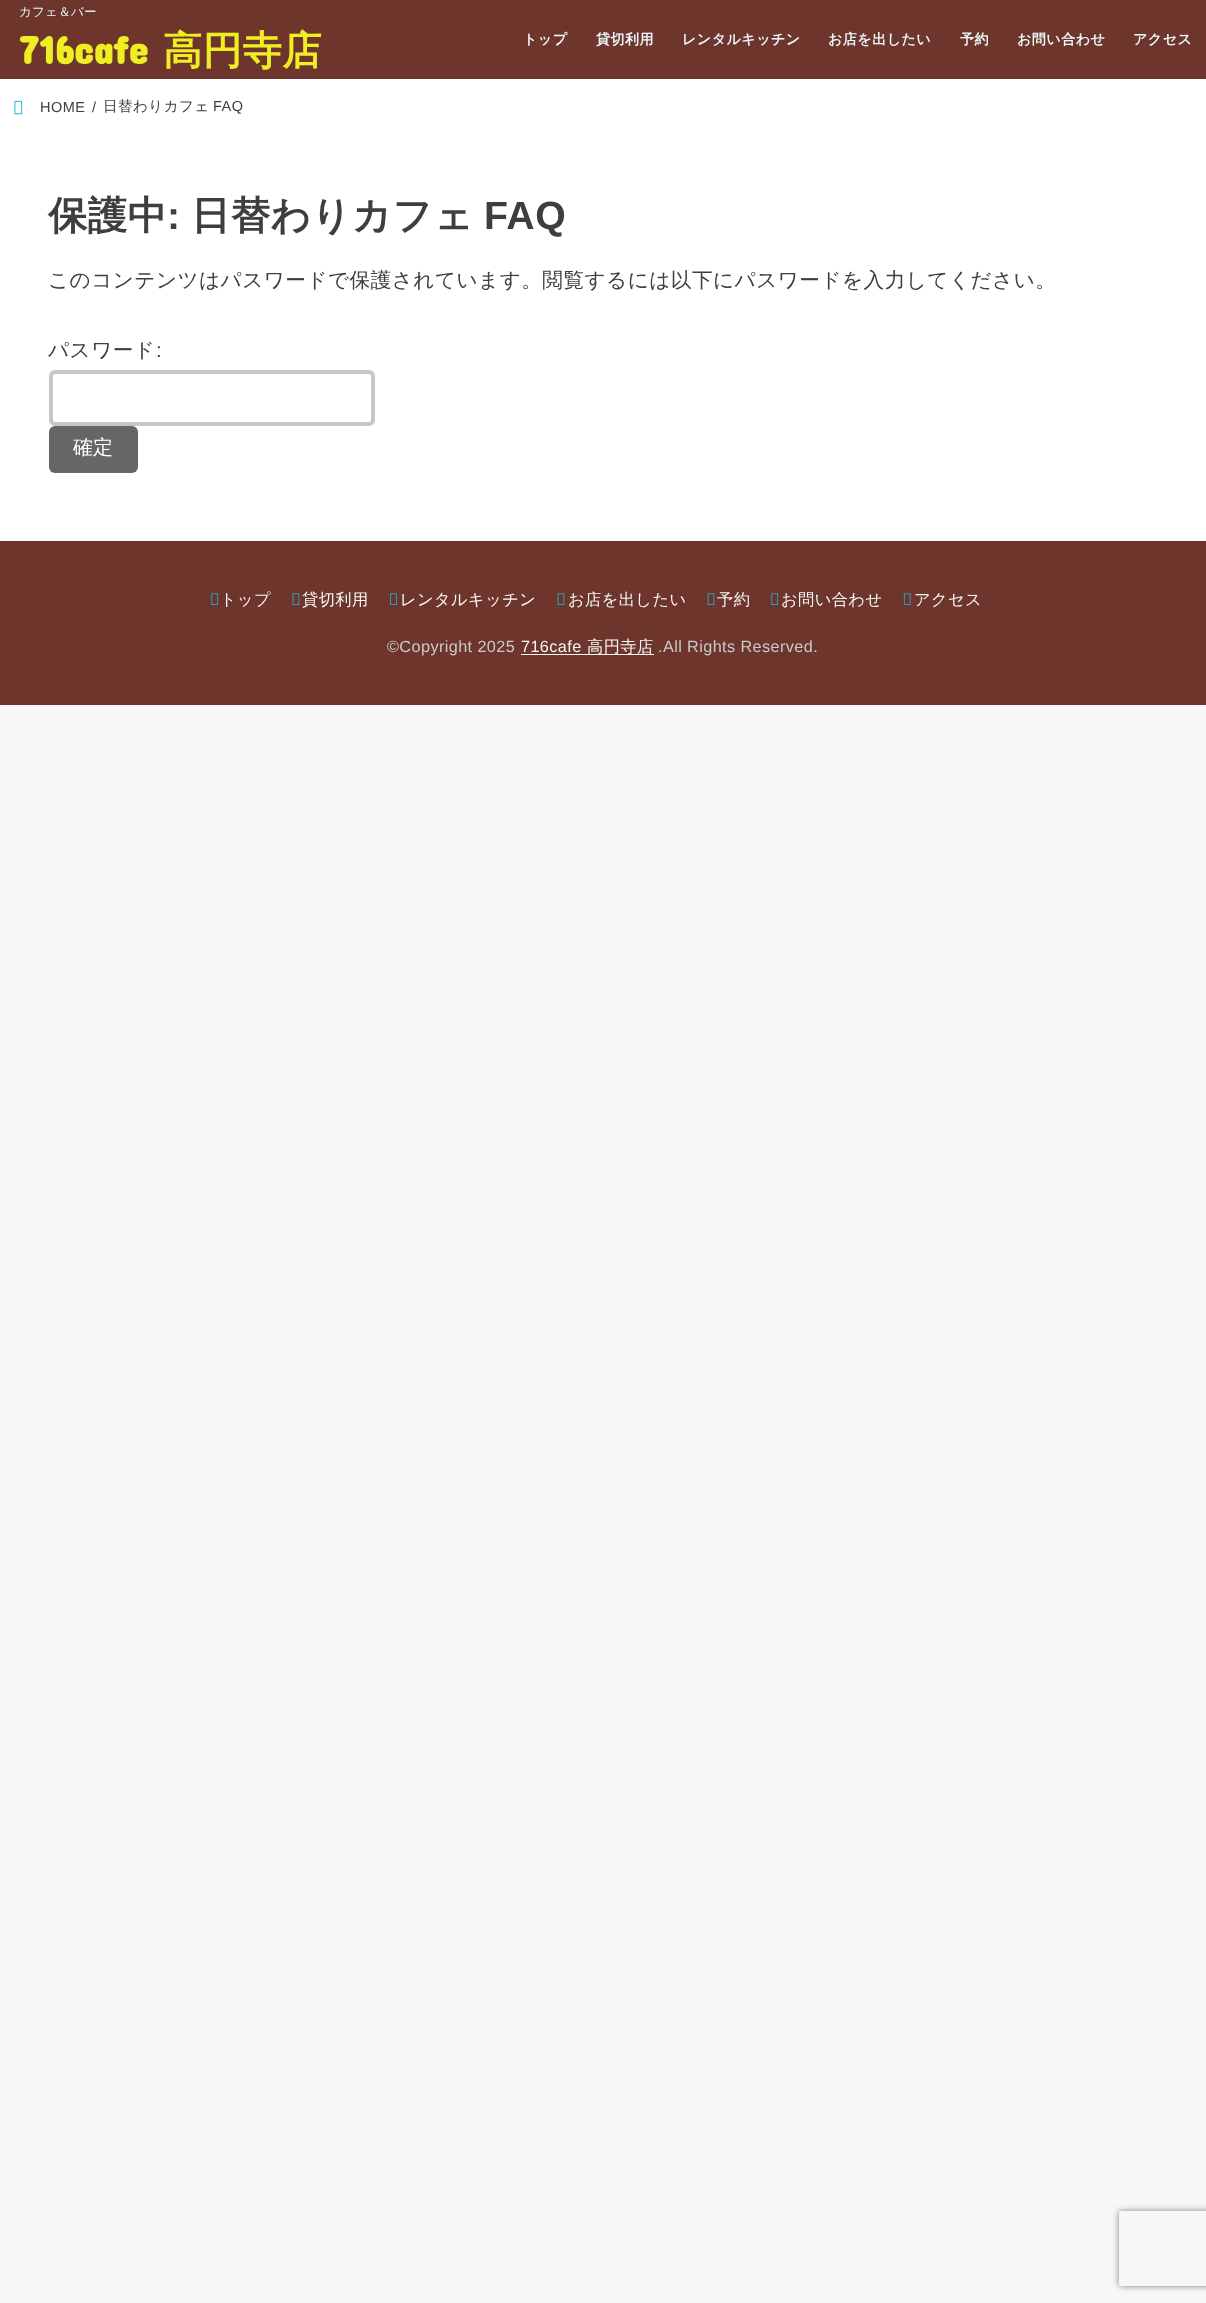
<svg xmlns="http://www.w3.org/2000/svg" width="1206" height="2303">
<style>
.a{font:500 12.5px WenQuanYi Zen Hei;letter-spacing:0.25px;fill:#edf9fc}
.b{font:bold 39.25px Concert One;letter-spacing:0.5px;fill:#ee2}
.c{font:bold 39.25px WenQuanYi Zen Hei;letter-spacing:0.5px;fill:#ee2}
.d{font:bold 14px WenQuanYi Zen Hei;letter-spacing:0.5px;fill:#edf9fc}
.e{font:14.5px Liberation Sans;letter-spacing:0.5px;fill:#3e3e3e}
.f{font:500 14.5px WenQuanYi Zen Hei;letter-spacing:0.5px;fill:#3e3e3e}
.g{font:bold 39.25px WenQuanYi Zen Hei;letter-spacing:0.5px;fill:#3e3e3e}
.h{font:bold 39.25px Liberation Sans;letter-spacing:0.5px;fill:#3e3e3e}
.i{font:500 20.6px WenQuanYi Zen Hei;letter-spacing:0.5px;fill:#3e3e3e}
.j{font:20.6px Liberation Sans;letter-spacing:0.5px;fill:#3e3e3e}
.k{font:500 20px WenQuanYi Zen Hei;fill:#fff}
.l{font:500 16.25px WenQuanYi Zen Hei;letter-spacing:0.4px;fill:#f7f7f7}
.m{font:16.25px Liberation Sans;letter-spacing:0.4px;fill:#cacaca}
.n{font:16.25px Liberation Sans;letter-spacing:0.4px;fill:#f7f7f7}
</style>
<defs>
<clipPath id="clip1"><path d="M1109 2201h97v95h-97zm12.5 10h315c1.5 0 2.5 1 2.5 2.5v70c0 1.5-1 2.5-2.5 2.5h-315c-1.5 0-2.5-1-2.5-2.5v-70c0-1.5 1-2.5 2.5-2.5z" clip-rule="evenodd"/></clipPath>
</defs>
<rect width="100%" height="100%" fill="#f7f7f7"/>
<path fill="#6d352c" d="M0 0h1206v79H0z"/>
<path fill="#fff" d="M0 79h1206v462H0z"/>
<image href="1.png" x="14" y="100" width="9" height="15"/>
<rect fill="none" stroke="#c6c6c6" stroke-width="4" x="51" y="372" width="322" height="52" rx="4"/>
<rect fill="#666" x="49" y="426" width="89" height="47" rx="6"/>
<path fill="#6d352c" d="M0 541h1206v164H0z"/>
<image href="2.png" x="211" y="593" width="8" height="12"/>
<image href="3.png" x="292" y="593" width="8" height="12"/>
<image href="4.png" x="390" y="593" width="7" height="12"/>
<image href="3.png" x="557" y="593" width="8" height="12"/>
<image href="3.png" x="707" y="593" width="8" height="12"/>
<image href="2.png" x="771" y="593" width="8" height="12"/>
<image href="5.png" x="903" y="593" width="8" height="12"/>
<path fill="#f7f7f7" d="M521 654h133v1H521z"/>
<g clip-path="url(#clip1)">
<rect fill="#808080" filter="blur(3px)" x="1119" y="2211" width="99" height="75" rx="2.5"/>
</g>
<text class="a" x="19" y="16">カフェ＆バー</text>
<text class="b" x="19" y="64">716cafe</text>
<text class="c" x="163" y="64">高円寺店</text>
<text class="d" x="523" y="44">トップ</text>
<text class="d" x="596" y="44">貸切利用</text>
<text class="d" x="682" y="44">レンタルキッチン</text>
<text class="d" x="828" y="44">お店を出したい</text>
<text class="d" x="960" y="44">予約</text>
<text class="d" x="1017" y="44">お問い合わせ</text>
<text class="d" x="1133" y="44">アクセス</text>
<text class="e" x="40" y="112">HOME</text>
<text class="e" x="92" y="112">/</text>
<text class="f" x="103" y="111">日替わりカフェ</text>
<text class="e" x="213" y="111">FAQ</text>
<text class="g" x="48" y="229">保護中</text>
<text class="h" x="167" y="229">:</text>
<text class="g" x="191" y="229">日替わりカフェ</text>
<text class="h" x="484" y="229">FAQ</text>
<text class="i" x="48" y="287">このコンテンツはパスワードで保護されています。閲覧するには以下にパスワードを入力してください。</text>
<text class="i" x="48" y="357">パスワード</text>
<text class="j" x="156" y="357">:</text>
<text class="k" x="73" y="454">確定</text>
<text class="l" x="220" y="605">トップ</text>
<text class="l" x="302" y="605">貸切利用</text>
<text class="l" x="400" y="605">レンタルキッチン</text>
<text class="l" x="568" y="605">お店を出したい</text>
<text class="l" x="717" y="605">予約</text>
<text class="l" x="781" y="605">お問い合わせ</text>
<text class="l" x="914" y="605">アクセス</text>
<text class="m" x="387" y="652">©Copyright 2025</text>
<text class="n" x="521" y="652">716cafe</text>
<text class="l" x="587" y="652">高円寺店</text>
<text class="m" x="658" y="652">.All Rights Reserved.</text>
</svg>
